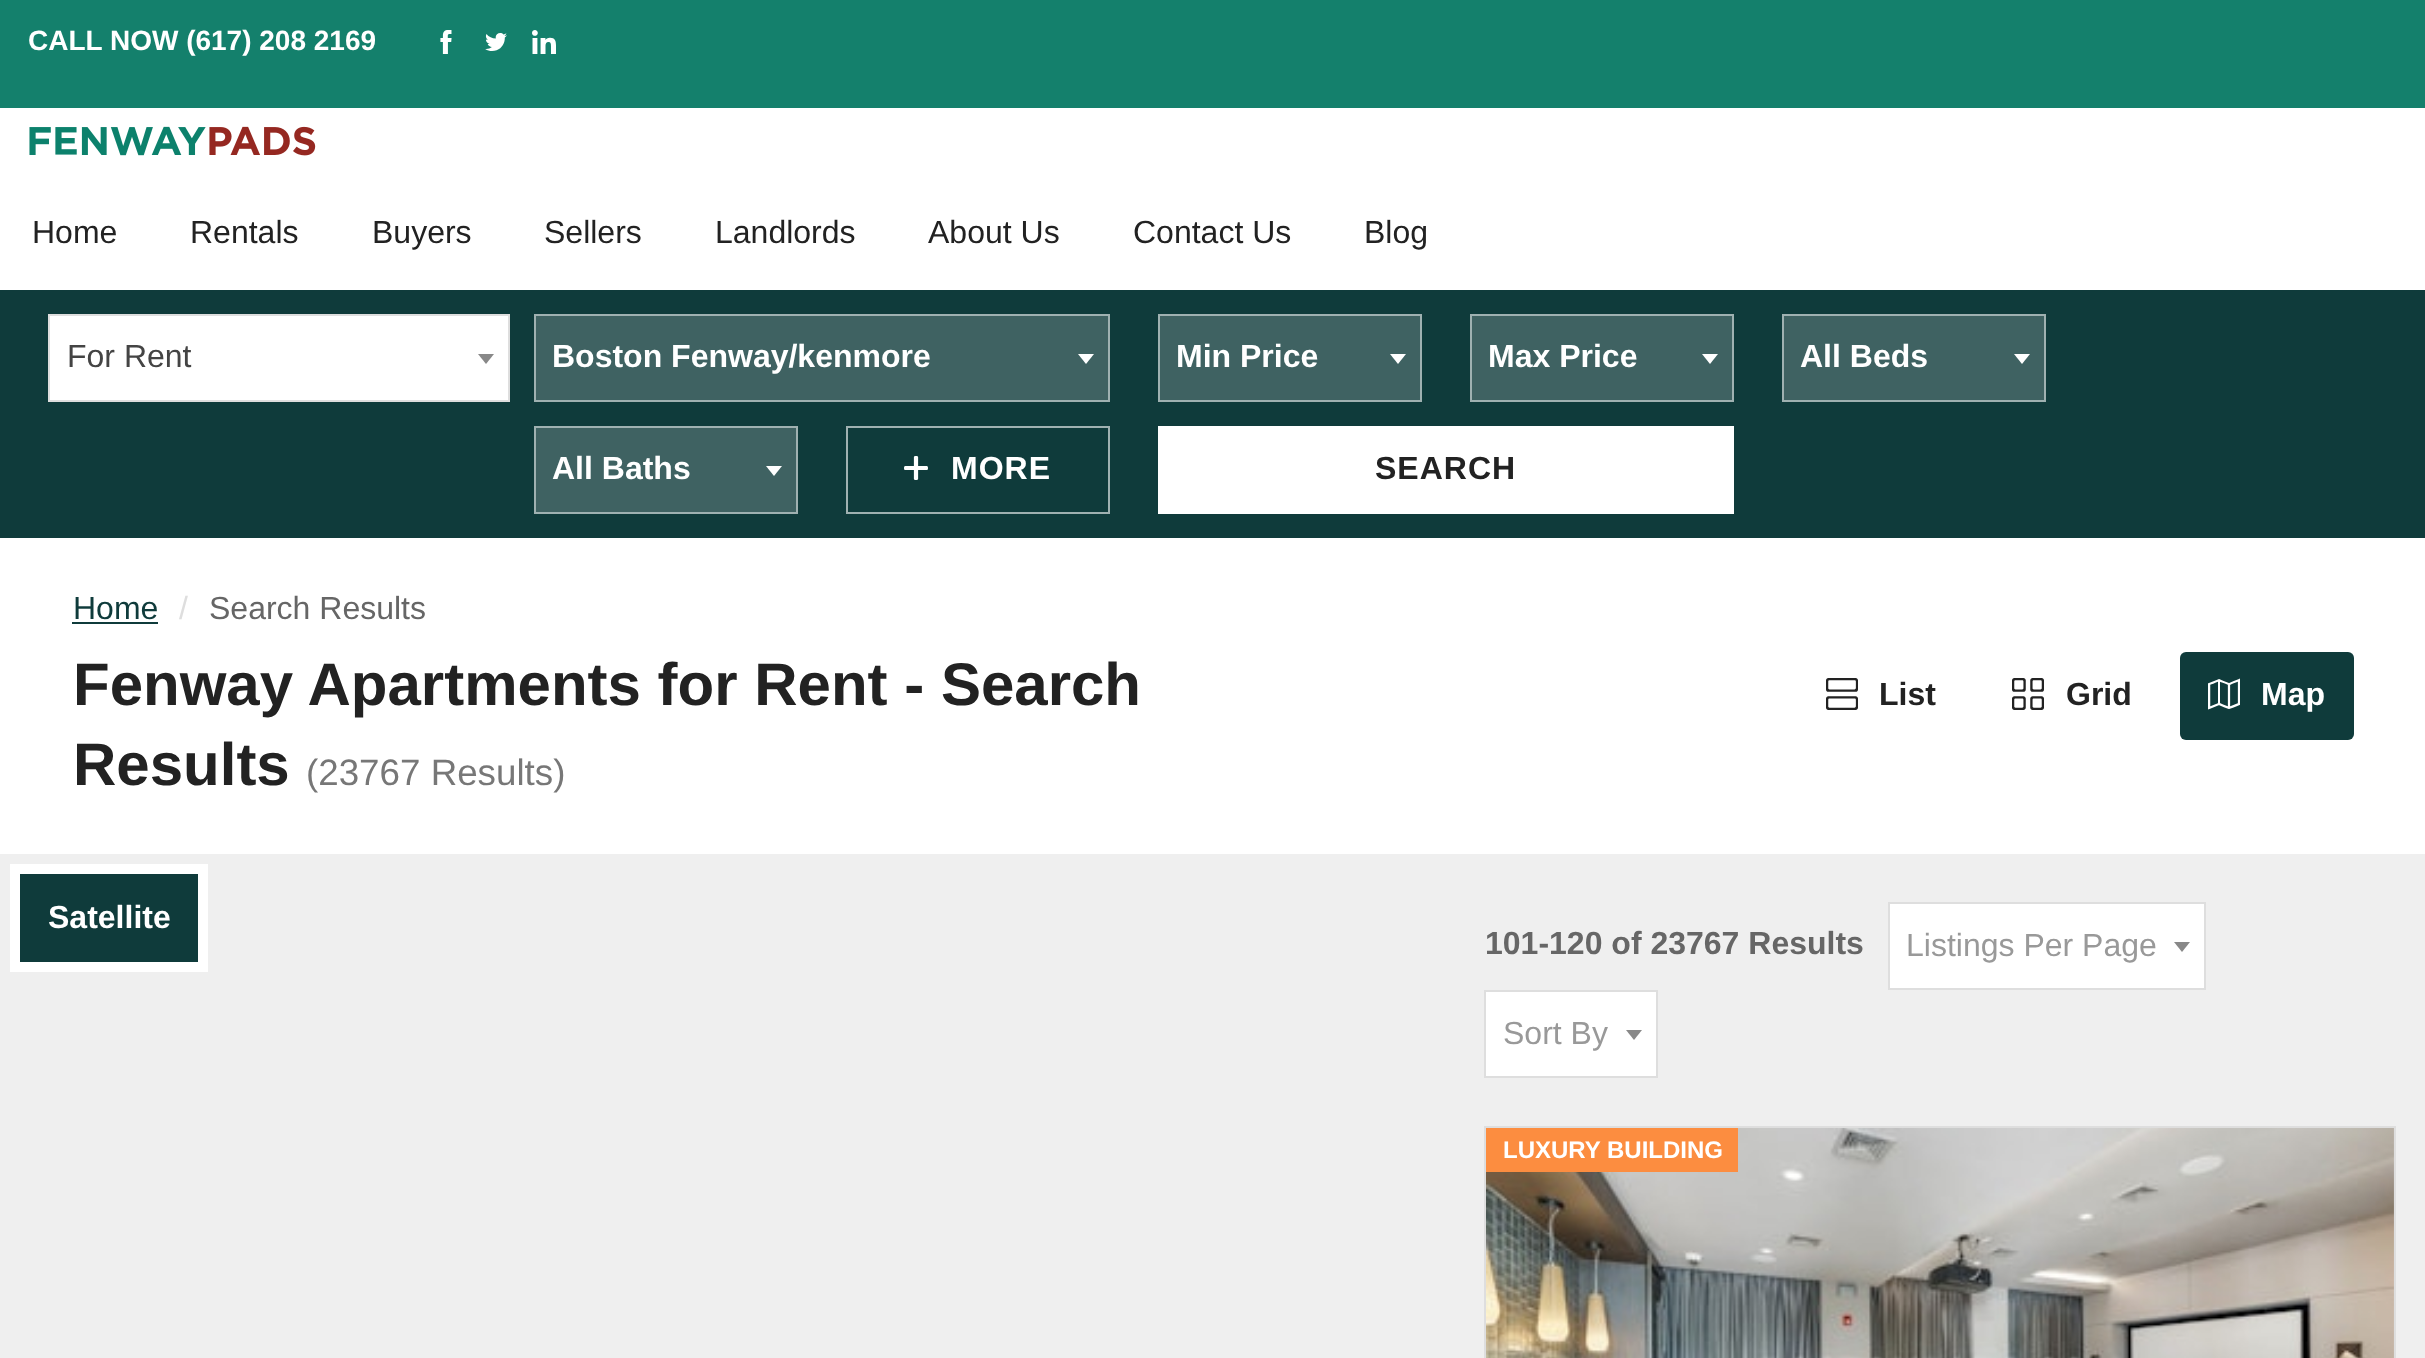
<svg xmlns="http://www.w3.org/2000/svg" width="2425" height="1358">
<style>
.a{font:bold 28px Liberation Sans;fill:#fff}
.b{font:32px Liberation Sans;fill:#222}
.c{font:32px Liberation Sans;fill:#444}
.d{font:bold 32px Liberation Sans;fill:#fff}
.e{font:bold 32px Liberation Sans;letter-spacing:1px;fill:#fff}
.f{font:bold 32px Liberation Sans;letter-spacing:1px;fill:#222}
.g{font:32px Liberation Sans;fill:#0f3b3b}
.h{font:32px Liberation Sans;fill:#dedede}
.i{font:32px Liberation Sans;fill:#666}
.j{font:bold 60px Liberation Sans;fill:#222}
.k{font:36.75px Liberation Sans;fill:#777}
.l{font:bold 32px Liberation Sans;fill:#222}
.m{font:bold 32px Liberation Sans;fill:#666}
.n{font:32px Liberation Sans;fill:#999}
.o{font:bold 24px Liberation Sans;fill:#fff}
</style>
<rect width="100%" height="100%" fill="#fff"/>
<path fill="#14806c" d="M0 0h2425v108H0z"/>
<image href="1.png" x="440" y="30" width="12" height="24"/>
<image href="2.png" x="485" y="33" width="22" height="18"/>
<image href="3.png" x="532" y="30" width="24" height="24"/>
<image href="4.png" x="29" y="126" width="287" height="30"/>
<path fill="#0f3b3b" d="M0 290h2425v248H0z"/>
<path fill="#fff" stroke="#dedede" stroke-width="2" d="M49 315h460v86H49z"/>
<path fill="#888" d="M478 354h16l-8 10z"/>
<path fill="#3f6262" stroke="#9fb1b1" stroke-width="2" d="M535 315h574v86H535z"/>
<path fill="#fff" d="M1078 354h16l-8 10z"/>
<path fill="#3f6262" stroke="#9fb1b1" stroke-width="2" d="M1159 315h262v86H1159z"/>
<path fill="#fff" d="M1390 354h16l-8 10z"/>
<path fill="#3f6262" stroke="#9fb1b1" stroke-width="2" d="M1471 315h262v86H1471z"/>
<path fill="#fff" d="M1702 354h16l-8 10z"/>
<path fill="#3f6262" stroke="#9fb1b1" stroke-width="2" d="M1783 315h262v86H1783z"/>
<path fill="#fff" d="M2014 354h16l-8 10z"/>
<path fill="#3f6262" stroke="#9fb1b1" stroke-width="2" d="M535 427h262v86H535z"/>
<path fill="#fff" d="M766 466h16l-8 10z"/>
<path fill="none" stroke="#9fb1b1" stroke-width="2" d="M847 427h262v86H847z"/>
<image href="5.png" x="904" y="456" width="24" height="24"/>
<path fill="#fff" d="M1158 426h576v88H1158z"/>
<path fill="#0f3b3b" d="M72 622h86v2H72z"/>
<image href="6.png" x="1826" y="678" width="32" height="32"/>
<image href="7.png" x="2012" y="678" width="32" height="32"/>
<rect fill="#0f3b3b" x="2180" y="652" width="174" height="88" rx="6"/>
<image href="8.png" x="2208" y="678" width="32" height="32"/>
<path fill="#efefef" d="M0 854h2425v504H0z"/>
<path fill="#fff" d="M10 864h198v108H10z"/>
<path fill="#0f3b3b" d="M20 874h178v88H20z"/>
<path fill="#fff" stroke="#dedede" stroke-width="2" d="M1889 903h316v86H1889z"/>
<path fill="#888" d="M2174 942h16l-8 10z"/>
<path fill="#fff" stroke="#dedede" stroke-width="2" d="M1485 991h172v86H1485z"/>
<path fill="#888" d="M1626 1030h16l-8 10z"/>
<path fill="none" stroke="#dedede" stroke-width="2" d="M1485 1127h910v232H1485z"/>
<image href="9.png" x="1486" y="1128" width="908" height="230"/>
<path fill="#fc8d40" d="M1486 1128h252v44H1486z"/>
<text class="a" x="28" y="50">CALL NOW (617) 208 2169</text>
<text class="b" x="32" y="243">Home</text>
<text class="b" x="190" y="243">Rentals</text>
<text class="b" x="372" y="243">Buyers</text>
<text class="b" x="544" y="243">Sellers</text>
<text class="b" x="715" y="243">Landlords</text>
<text class="b" x="928" y="243">About Us</text>
<text class="b" x="1133" y="243">Contact Us</text>
<text class="b" x="1364" y="243">Blog</text>
<text class="c" x="67" y="367">For Rent</text>
<text class="d" x="552" y="367">Boston Fenway/kenmore</text>
<text class="d" x="1176" y="367">Min Price</text>
<text class="d" x="1488" y="367">Max Price</text>
<text class="d" x="1800" y="367">All Beds</text>
<text class="d" x="552" y="479">All Baths</text>
<text class="e" x="951" y="479">MORE</text>
<text class="f" x="1375" y="479">SEARCH</text>
<text class="g" x="73" y="619">Home</text>
<text class="h" x="179" y="619">/</text>
<text class="i" x="209" y="619">Search Results</text>
<text class="j" x="73" y="705">Fenway Apartments for Rent - Search</text>
<text class="j" x="73" y="785">Results</text>
<text class="k" x="306" y="785">(23767 Results)</text>
<text class="l" x="1879" y="705">List</text>
<text class="l" x="2066" y="705">Grid</text>
<text class="d" x="2261" y="705">Map</text>
<text class="d" x="48" y="928">Satellite</text>
<text class="m" x="1485" y="954">101-120 of 23767 Results</text>
<text class="n" x="1906" y="956">Listings Per Page</text>
<text class="n" x="1503" y="1044">Sort By</text>
<text class="o" x="1503" y="1158">LUXURY BUILDING</text>
</svg>
